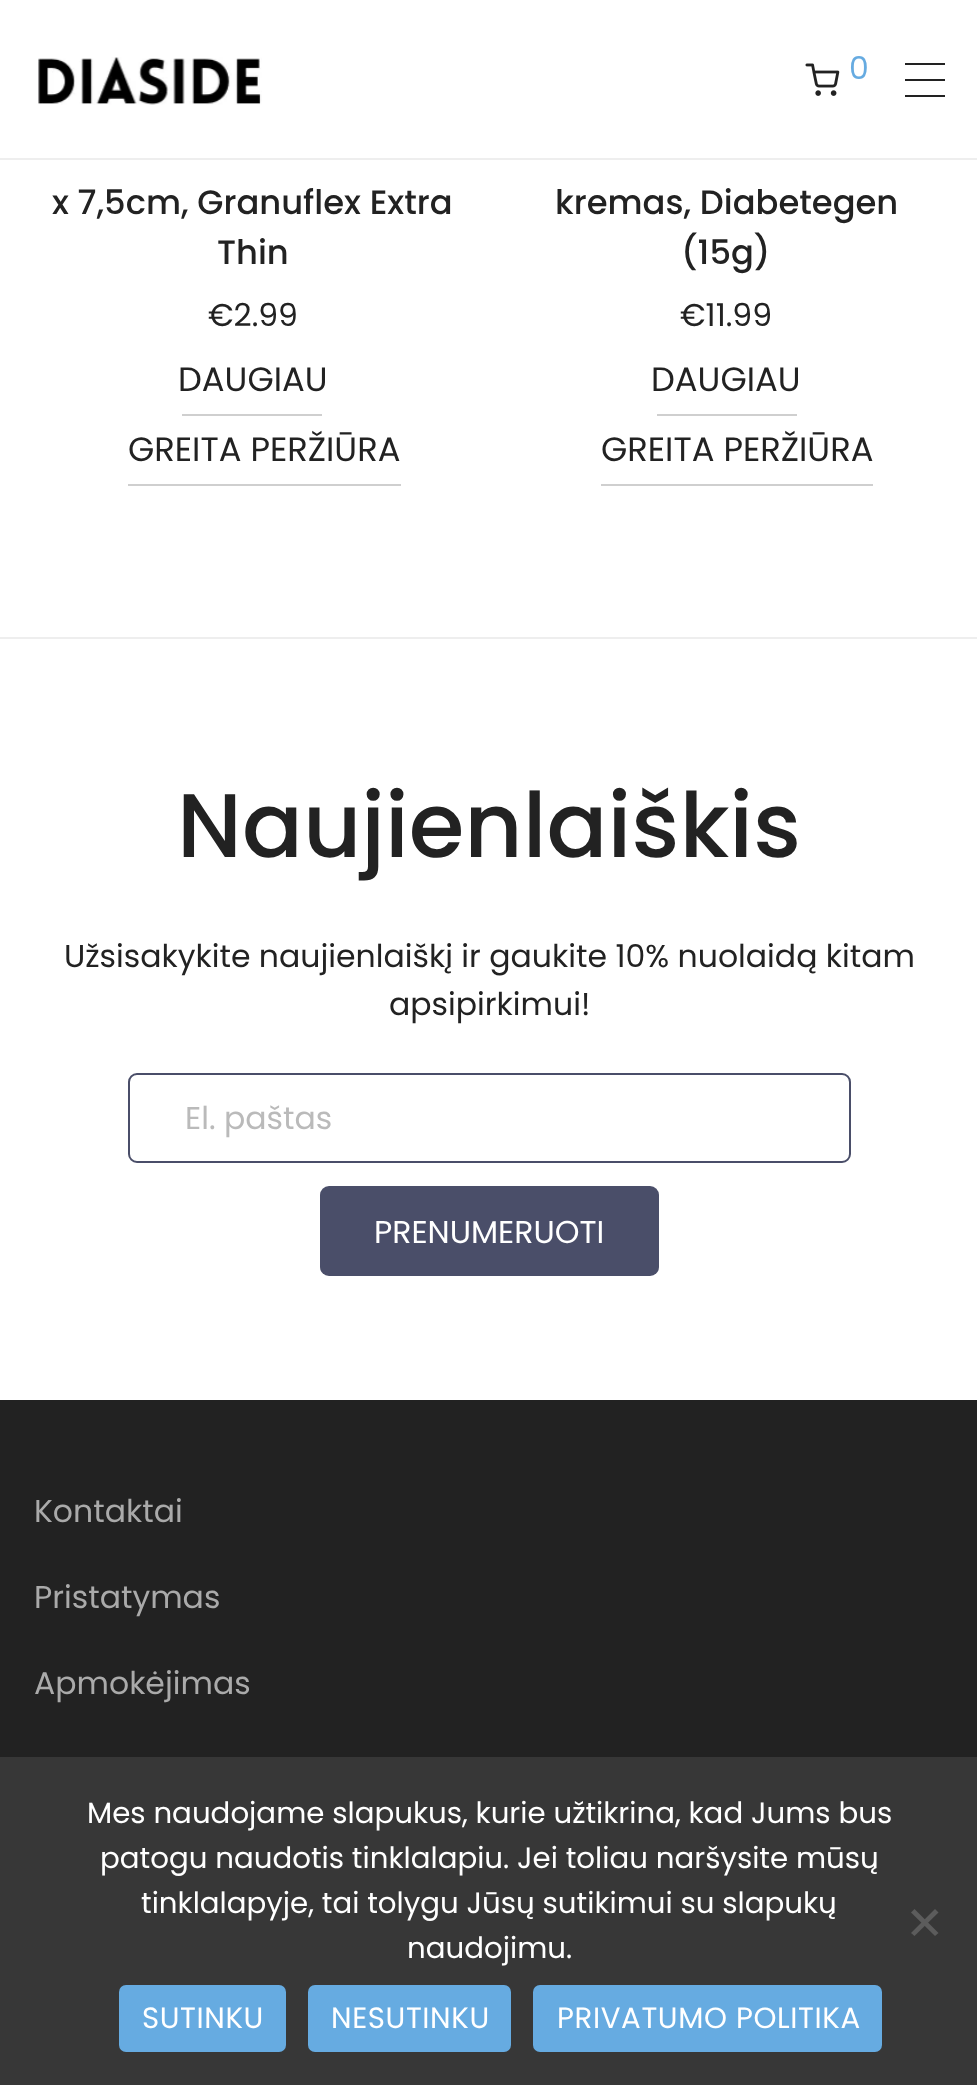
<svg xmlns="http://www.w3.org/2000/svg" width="977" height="2085">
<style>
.a{font:31.5px Poppins;fill:#66abe1}
.b{font:500 33.75px Poppins;fill:#222}
.c{font:31.5px Poppins;fill:#222}
.d{font:33.75px Poppins;fill:#222}
.e{font:500 90px Poppins;fill:#222}
.f{font:31.5px Poppins;fill:#bababa}
.g{font:31.5px Poppins;fill:#fff}
.h{font:31.5px Poppins;fill:#aaa}
.i{font:29.25px Poppins;fill:#fff}
.j{font:29.25px Poppins;letter-spacing:0.6px;fill:#fff}
</style>
<rect width="100%" height="100%" fill="#fff"/>
<path fill="#eee" d="M0 158h977v2H0z"/>
<image href="1.png" x="38" y="57" width="224" height="48"/>
<image href="2.png" x="805" y="63" width="35" height="33"/>
<path fill="#222" d="M905 63h40v2H905z"/>
<path fill="#222" d="M905 79h40v2H905z"/>
<path fill="#222" d="M905 95h40v2H905z"/>
<path fill="#cfcfcf" d="M182 414h140v2H182z"/>
<path fill="#cfcfcf" d="M128 484h273v2H128z"/>
<path fill="#cfcfcf" d="M657 414h140v2H657z"/>
<path fill="#cfcfcf" d="M601 484h272v2H601z"/>
<path fill="#eee" d="M0 637h977v2H0z"/>
<rect fill="none" stroke="#4a4e69" stroke-width="2" x="129" y="1074" width="721" height="88" rx="8"/>
<rect fill="#4a4e69" x="320" y="1186" width="339" height="90" rx="9"/>
<path fill="#222" d="M0 1400h977v685H0z"/>
<path fill="#3a3a3ae6" d="M0 1757h977v328H0z"/>
<path fill="#5c5c5c" d="M935 1909l3.5 3.5l-24 23.5l-3.5-3z"/>
<path fill="#5c5c5c" d="M911 1912.5l3.5-3.5l24 24l-3.5 3z"/>
<rect fill="#66abe1" x="119" y="1985" width="167" height="67" rx="7"/>
<rect fill="#66abe1" x="308" y="1985" width="203" height="67" rx="7"/>
<rect fill="#66abe1" x="533" y="1985" width="349" height="67" rx="7"/>
<text class="a" x="849" y="79">0</text>
<text class="b" x="52" y="214">x 7,5cm, Granuflex Extra</text>
<text class="b" x="217" y="264">Thin</text>
<text class="c" x="208" y="326">€2.99</text>
<text class="d" x="178" y="391">DAUGIAU</text>
<text class="d" x="128" y="461">GREITA PERŽIŪRA</text>
<text class="b" x="555" y="214">kremas, Diabetegen</text>
<text class="b" x="681" y="264">(15g)</text>
<text class="c" x="680" y="326">€11.99</text>
<text class="d" x="651" y="391">DAUGIAU</text>
<text class="d" x="601" y="461">GREITA PERŽIŪRA</text>
<text class="e" x="177" y="857">Naujienlaiškis</text>
<text class="c" x="64" y="967">Užsisakykite naujienlaiškį ir gaukite 10% nuolaidą kitam</text>
<text class="c" x="389" y="1015">apsipirkimui!</text>
<text class="f" x="185" y="1129">El. paštas</text>
<text class="g" x="374" y="1243">PRENUMERUOTI</text>
<text class="h" x="34" y="1522">Kontaktai</text>
<text class="h" x="34" y="1608">Pristatymas</text>
<text class="h" x="34" y="1694">Apmokėjimas</text>
<text class="i" x="87" y="1823">Mes naudojame slapukus, kurie užtikrina, kad Jums bus</text>
<text class="i" x="100" y="1868">patogu naudotis tinklalapiu. Jei toliau naršysite mūsų</text>
<text class="i" x="141" y="1913">tinklalapyje, tai tolygu Jūsų sutikimui su slapukų</text>
<text class="i" x="407" y="1958">naudojimu.</text>
<text class="j" x="142" y="2028">SUTINKU</text>
<text class="j" x="331" y="2028">NESUTINKU</text>
<text class="j" x="557" y="2028">PRIVATUMO POLITIKA</text>
</svg>
